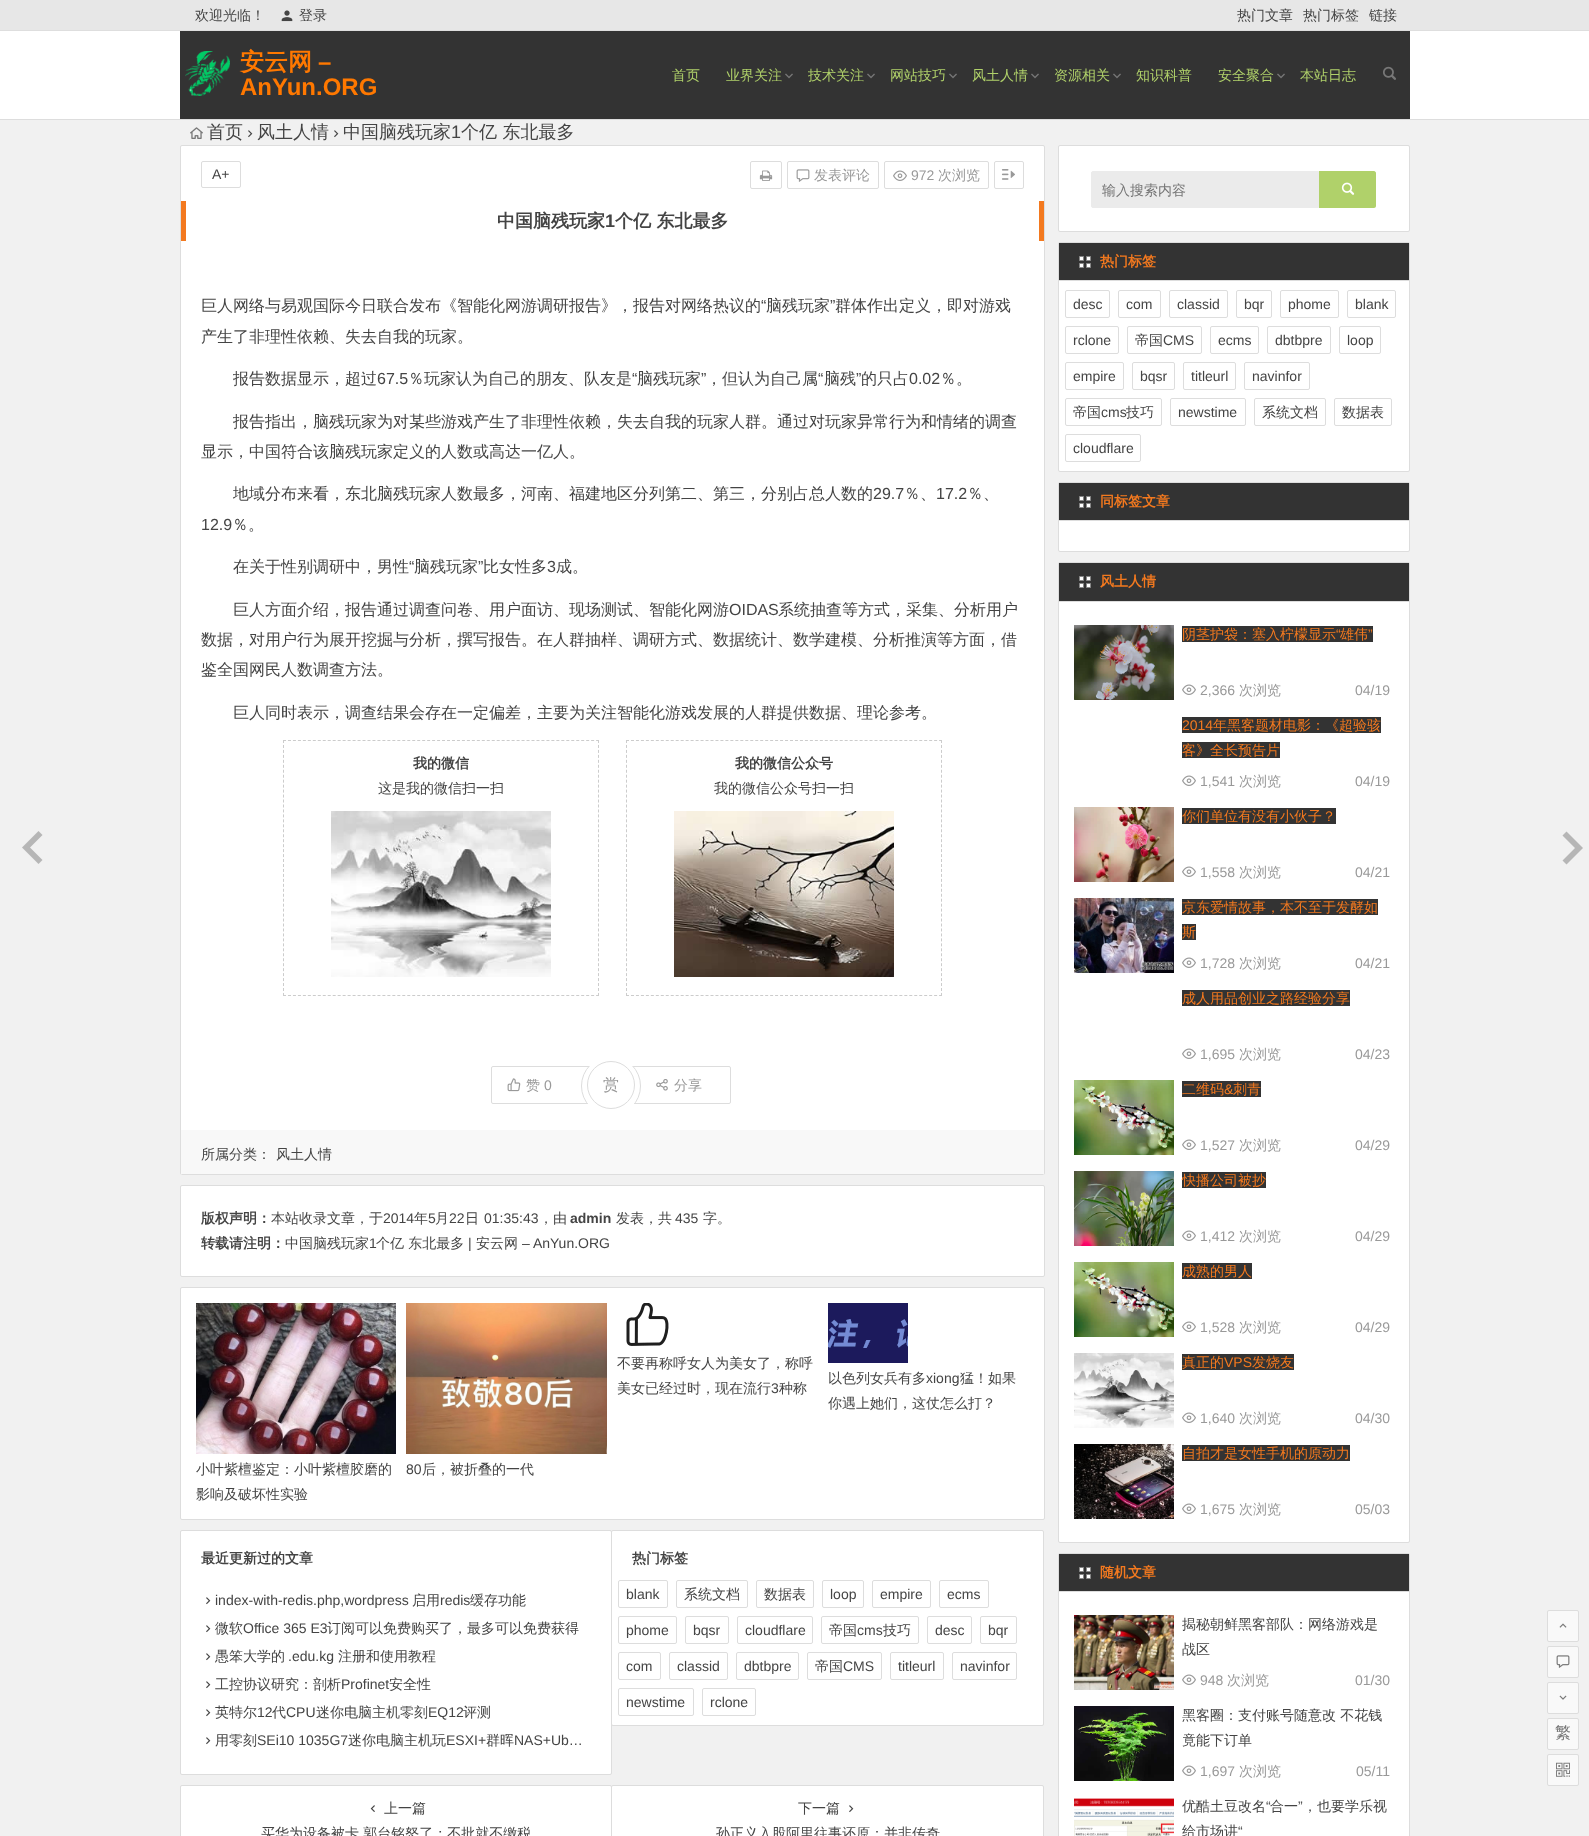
<svg xmlns="http://www.w3.org/2000/svg" width="1589" height="1836">
<style>
.a{font:500 14px WenQuanYi Zen Hei;fill:#444}
.b{font:bold 24px WenQuanYi Zen Hei;fill:#ff7800}
.c{font:bold 24px Liberation Sans;fill:#ff7800}
.d{font:500 14px WenQuanYi Zen Hei;fill:#b0d16a}
.e{font:500 18px WenQuanYi Zen Hei;fill:#444}
.f{font:18px Liberation Sans;fill:#444}
.g{font:14px Liberation Sans;fill:#444}
.h{font:500 14px WenQuanYi Zen Hei;fill:#999}
.i{font:14px Liberation Sans;fill:#999}
.j{font:500 16px WenQuanYi Zen Hei;fill:#444}
.k{font:16px Liberation Sans;fill:#444}
.l{font:bold 14px WenQuanYi Zen Hei;fill:#444}
.m{font:500 16px WenQuanYi Zen Hei;fill:#999}
.n{font:bold 18px WenQuanYi Zen Hei;fill:#444}
.o{font:bold 18px Liberation Sans;fill:#444}
.p{font:bold 14px Liberation Sans;fill:#444}
.q{font:500 14px WenQuanYi Zen Hei;fill:#757575}
.r{font:bold 14px WenQuanYi Zen Hei;fill:#f3791f}
.s{font:500 14px WenQuanYi Zen Hei;fill:#f3791f}
.t{font:14px Liberation Sans;fill:#f3791f}
.u{font:500 16px WenQuanYi Zen Hei;fill:#757575}
</style>
<defs>
<clipPath id="clip1"><path d="M581 1066h62v38H581z"/></clipPath>
</defs>
<rect width="100%" height="100%" fill="#f1f1f1"/>
<path fill="#e7e7e7" d="M0 0h1589v30H0z"/>
<path fill="#dedede" d="M0 30h1589v1H0z"/>
<image href="1.png" x="281" y="10" width="12" height="12"/>
<path fill="#fff" d="M0 31h1589v88H0z"/>
<path fill="#ddd" d="M0 119h1589v1H0z"/>
<path fill="#333" d="M180 31h1230v88H180z"/>
<image href="2.png" x="185" y="51" width="45" height="45"/>
<image href="3.png" x="785" y="73" width="8" height="6"/>
<image href="3.png" x="867" y="73" width="8" height="6"/>
<image href="3.png" x="949" y="73" width="8" height="6"/>
<image href="3.png" x="1031" y="73" width="8" height="6"/>
<image href="3.png" x="1113" y="73" width="8" height="6"/>
<image href="3.png" x="1277" y="73" width="8" height="6"/>
<image href="4.png" x="1383" y="66" width="13" height="14"/>
<image href="5.png" x="190" y="127" width="13" height="12"/>
<image href="6.png" x="248" y="130" width="5" height="8"/>
<image href="6.png" x="334" y="130" width="5" height="8"/>
<rect fill="#fff" stroke="#ddd" x="180.5" y="145.5" width="864" height="1029" rx="1.5"/>
<rect fill="none" stroke="#ddd" x="201.5" y="161.5" width="39" height="26" rx="1.5"/>
<rect fill="none" stroke="#ddd" x="750.5" y="161.5" width="31" height="27" rx="1.5"/>
<image href="7.png" x="759" y="170" width="14" height="11"/>
<rect fill="none" stroke="#ddd" x="787.5" y="161.5" width="91" height="27" rx="1.5"/>
<image href="8.png" x="796" y="169" width="14" height="13"/>
<rect fill="none" stroke="#ddd" x="884.5" y="161.5" width="104" height="27" rx="1.5"/>
<image href="9.png" x="893" y="170" width="14" height="11"/>
<rect fill="none" stroke="#ddd" x="994.5" y="161.5" width="29" height="27" rx="1.5"/>
<image href="10.png" x="1001" y="169" width="14" height="11"/>
<path fill="none" stroke="#ccc" stroke-dasharray="3 1.97" d="M283 740.5h316"/>
<path fill="none" stroke="#ccc" stroke-dasharray="3 1.96" d="M598.5 740v256"/>
<path fill="none" stroke="#ccc" stroke-dasharray="3 1.97" d="M283 995.5h316"/>
<path fill="none" stroke="#ccc" stroke-dasharray="3 1.96" d="M283.5 740v256"/>
<image href="11.png" x="331" y="811" width="220" height="166"/>
<path fill="none" stroke="#ccc" stroke-dasharray="3 1.97" d="M626 740.5h316"/>
<path fill="none" stroke="#ccc" stroke-dasharray="3 1.96" d="M941.5 740v256"/>
<path fill="none" stroke="#ccc" stroke-dasharray="3 1.97" d="M626 995.5h316"/>
<path fill="none" stroke="#ccc" stroke-dasharray="3 1.96" d="M626.5 740v256"/>
<image href="12.png" x="674" y="811" width="220" height="166"/>
<rect fill="none" stroke="#ddd" x="491.5" y="1066.5" width="119" height="37" rx="1.5"/>
<image href="13.png" x="507" y="1078" width="14" height="14"/>
<rect fill="none" stroke="#ddd" x="611.5" y="1066.5" width="119" height="37" rx="1.5"/>
<g clip-path="url(#clip1)">
<circle fill="#fff" stroke="#ddd" cx="611" cy="1086" r="29.5"/>
</g>
<circle fill="none" stroke="#ddd" cx="611" cy="1085" r="23.5"/>
<image href="14.png" x="656" y="1079" width="12" height="12"/>
<path fill="#f8f8f8" d="M181 1130h863v43c0 1-1 2-2 2h-859c-1 0-2-1-2-2z"/>
<path fill="#ddd" d="M182 1174h861v1H182z"/>
<path fill="#f3791f" d="M1039 201h5v40H1039z"/>
<path fill="#f3791f" d="M181 201h5v40H181z"/>
<path fill="#b6b6b6" d="M42.5 860l-12.5-12.5l12.5-12.5l-4-4l-16.5 16.5l16.5 16.5z"/>
<path fill="#b6b6b6" d="M1562.5 860.5l12.5-12.5l-12.5-12.5l4-4l16.5 16.5l-16.5 16.5z"/>
<rect fill="#fff" stroke="#ddd" x="180.5" y="1185.5" width="864" height="91" rx="1.5"/>
<rect fill="#fff" stroke="#ddd" x="180.5" y="1287.5" width="864" height="232" rx="1.5"/>
<image href="15.png" x="626" y="1303" width="43" height="43"/>
<image href="16.png" x="828" y="1303" width="80" height="60"/>
<image href="17.png" x="196" y="1303" width="200" height="151"/>
<image href="18.png" x="406" y="1303" width="201" height="151"/>
<rect fill="#fff" stroke="#ddd" x="180.5" y="1530.5" width="431" height="244" rx="1.5"/>
<image href="19.png" x="206" y="1597" width="5" height="8"/>
<image href="19.png" x="206" y="1625" width="5" height="8"/>
<image href="19.png" x="206" y="1653" width="5" height="8"/>
<image href="19.png" x="206" y="1681" width="5" height="8"/>
<image href="19.png" x="206" y="1709" width="5" height="8"/>
<image href="19.png" x="206" y="1737" width="5" height="8"/>
<rect fill="#fff" stroke="#ddd" x="611.5" y="1530.5" width="432" height="195" rx="1.5"/>
<rect fill="none" stroke="#ddd" x="618.5" y="1580.5" width="49" height="27" rx="1.5"/>
<rect fill="none" stroke="#ddd" x="676.5" y="1580.5" width="71" height="27" rx="1.5"/>
<rect fill="none" stroke="#ddd" x="756.5" y="1580.5" width="57" height="27" rx="1.5"/>
<rect fill="none" stroke="#ddd" x="822.5" y="1580.5" width="41" height="27" rx="1.5"/>
<rect fill="none" stroke="#ddd" x="872.5" y="1580.5" width="58" height="27" rx="1.5"/>
<rect fill="none" stroke="#ddd" x="939.5" y="1580.5" width="49" height="27" rx="1.5"/>
<rect fill="none" stroke="#ddd" x="618.5" y="1616.5" width="58" height="27" rx="1.5"/>
<rect fill="none" stroke="#ddd" x="685.5" y="1616.5" width="43" height="27" rx="1.5"/>
<rect fill="none" stroke="#ddd" x="737.5" y="1616.5" width="75" height="27" rx="1.5"/>
<rect fill="none" stroke="#ddd" x="821.5" y="1616.5" width="97" height="27" rx="1.5"/>
<rect fill="none" stroke="#ddd" x="927.5" y="1616.5" width="44" height="27" rx="1.5"/>
<rect fill="none" stroke="#ddd" x="980.5" y="1616.5" width="36" height="27" rx="1.5"/>
<rect fill="none" stroke="#ddd" x="618.5" y="1652.5" width="42" height="27" rx="1.5"/>
<rect fill="none" stroke="#ddd" x="669.5" y="1652.5" width="58" height="27" rx="1.5"/>
<rect fill="none" stroke="#ddd" x="736.5" y="1652.5" width="62" height="27" rx="1.5"/>
<rect fill="none" stroke="#ddd" x="807.5" y="1652.5" width="74" height="27" rx="1.5"/>
<rect fill="none" stroke="#ddd" x="890.5" y="1652.5" width="53" height="27" rx="1.5"/>
<rect fill="none" stroke="#ddd" x="952.5" y="1652.5" width="64" height="27" rx="1.5"/>
<rect fill="none" stroke="#ddd" x="618.5" y="1688.5" width="75" height="27" rx="1.5"/>
<rect fill="none" stroke="#ddd" x="702.5" y="1688.5" width="53" height="27" rx="1.5"/>
<rect fill="#fff" stroke="#ddd" x="180.5" y="1785.5" width="431" height="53" rx="1.5"/>
<image href="20.png" x="370" y="1805" width="5" height="7"/>
<rect fill="#fff" stroke="#ddd" x="611.5" y="1785.5" width="432" height="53" rx="1.5"/>
<image href="19.png" x="849" y="1805" width="5" height="8"/>
<rect fill="#fff" stroke="#ddd" x="1058.5" y="145.5" width="351" height="86" rx="1.5"/>
<path fill="#ebebeb" stroke="#ebebeb" d="M1093 171.5h225.5v36h-225.5c-1 0-1.5-.5-1.5-1.5v-33c0-1 .5-1.5 1.5-1.5z"/>
<path fill="#b0d16a" d="M1319 171h55c1 0 2 1 2 2v33c0 1-1 2-2 2h-55z"/>
<image href="21.png" x="1341" y="182" width="14" height="13"/>
<rect fill="#fff" stroke="#ddd" x="1058.5" y="242.5" width="351" height="229" rx="1.5"/>
<path fill="#333" d="M1059 243h350v37H1059z"/>
<path fill="#ddd" d="M1059 280h350v1H1059z"/>
<path fill="#fff" stroke="#888" d="M1079.5 256.5h4v4H1079.5z"/>
<path fill="#fff" stroke="#888" d="M1086.5 256.5h4v4H1086.5z"/>
<path fill="#fff" stroke="#888" d="M1079.5 263.5h4v4H1079.5z"/>
<path fill="#fff" stroke="#888" d="M1086.5 263.5h4v4H1086.5z"/>
<rect fill="none" stroke="#ddd" x="1065.5" y="290.5" width="44" height="27" rx="1.5"/>
<rect fill="none" stroke="#ddd" x="1118.5" y="290.5" width="42" height="27" rx="1.5"/>
<rect fill="none" stroke="#ddd" x="1169.5" y="290.5" width="58" height="27" rx="1.5"/>
<rect fill="none" stroke="#ddd" x="1236.5" y="290.5" width="35" height="27" rx="1.5"/>
<rect fill="none" stroke="#ddd" x="1280.5" y="290.5" width="58" height="27" rx="1.5"/>
<rect fill="none" stroke="#ddd" x="1347.5" y="290.5" width="48" height="27" rx="1.5"/>
<rect fill="none" stroke="#ddd" x="1065.5" y="326.5" width="53" height="27" rx="1.5"/>
<rect fill="none" stroke="#ddd" x="1127.5" y="326.5" width="74" height="27" rx="1.5"/>
<rect fill="none" stroke="#ddd" x="1210.5" y="326.5" width="48" height="27" rx="1.5"/>
<rect fill="none" stroke="#ddd" x="1267.5" y="326.5" width="63" height="27" rx="1.5"/>
<rect fill="none" stroke="#ddd" x="1339.5" y="326.5" width="41" height="27" rx="1.5"/>
<rect fill="none" stroke="#ddd" x="1065.5" y="362.5" width="58" height="27" rx="1.5"/>
<rect fill="none" stroke="#ddd" x="1132.5" y="362.5" width="42" height="27" rx="1.5"/>
<rect fill="none" stroke="#ddd" x="1183.5" y="362.5" width="52" height="27" rx="1.5"/>
<rect fill="none" stroke="#ddd" x="1244.5" y="362.5" width="65" height="27" rx="1.5"/>
<rect fill="none" stroke="#ddd" x="1065.5" y="398.5" width="96" height="27" rx="1.5"/>
<rect fill="none" stroke="#ddd" x="1170.5" y="398.5" width="75" height="27" rx="1.5"/>
<rect fill="none" stroke="#ddd" x="1254.5" y="398.5" width="71" height="27" rx="1.5"/>
<rect fill="none" stroke="#ddd" x="1334.5" y="398.5" width="57" height="27" rx="1.5"/>
<rect fill="none" stroke="#ddd" x="1065.5" y="434.5" width="75" height="27" rx="1.5"/>
<rect fill="#fff" stroke="#ddd" x="1058.5" y="482.5" width="351" height="69" rx="1.5"/>
<path fill="#333" d="M1059 483h350v37H1059z"/>
<path fill="#ddd" d="M1059 520h350v1H1059z"/>
<path fill="#fff" stroke="#888" d="M1079.5 496.5h4v4H1079.5z"/>
<path fill="#fff" stroke="#888" d="M1086.5 496.5h4v4H1086.5z"/>
<path fill="#fff" stroke="#888" d="M1079.5 503.5h4v4H1079.5z"/>
<path fill="#fff" stroke="#888" d="M1086.5 503.5h4v4H1086.5z"/>
<rect fill="#fff" stroke="#ddd" x="1058.5" y="562.5" width="351" height="980" rx="1.5"/>
<path fill="#333" d="M1059 563h350v38H1059z"/>
<path fill="#ddd" d="M1059 601h350v1H1059z"/>
<path fill="#fff" stroke="#888" d="M1079.5 576.5h4v4H1079.5z"/>
<path fill="#fff" stroke="#888" d="M1086.5 576.5h4v4H1086.5z"/>
<path fill="#fff" stroke="#888" d="M1079.5 583.5h4v4H1079.5z"/>
<path fill="#fff" stroke="#888" d="M1086.5 583.5h4v4H1086.5z"/>
<image href="22.png" x="1074" y="625" width="100" height="75"/>
<path fill="#333" d="M1182 626h191v16H1182z"/>
<image href="9.png" x="1182" y="684" width="14" height="11"/>
<path fill="#333" d="M1182 717h199v16H1182z"/>
<path fill="#333" d="M1182 742h98v16H1182z"/>
<image href="9.png" x="1182" y="775" width="14" height="11"/>
<image href="23.png" x="1074" y="807" width="100" height="75"/>
<path fill="#333" d="M1182 808h154v16H1182z"/>
<image href="9.png" x="1182" y="866" width="14" height="11"/>
<image href="24.png" x="1074" y="898" width="100" height="75"/>
<path fill="#333" d="M1182 899h196v16H1182z"/>
<path fill="#333" d="M1182 924h14v16H1182z"/>
<image href="9.png" x="1182" y="957" width="14" height="11"/>
<path fill="#333" d="M1182 990h168v16H1182z"/>
<image href="9.png" x="1182" y="1048" width="14" height="11"/>
<image href="25.png" x="1074" y="1080" width="100" height="75"/>
<path fill="#333" d="M1182 1081h79v16H1182z"/>
<image href="9.png" x="1182" y="1139" width="14" height="11"/>
<image href="26.png" x="1074" y="1171" width="100" height="75"/>
<path fill="#333" d="M1182 1172h84v16H1182z"/>
<image href="9.png" x="1182" y="1230" width="14" height="11"/>
<image href="27.png" x="1074" y="1262" width="100" height="75"/>
<path fill="#333" d="M1182 1263h70v16H1182z"/>
<image href="9.png" x="1182" y="1321" width="14" height="11"/>
<image href="28.png" x="1074" y="1353" width="100" height="75"/>
<path fill="#333" d="M1182 1354h112v16H1182z"/>
<image href="9.png" x="1182" y="1412" width="14" height="11"/>
<image href="29.png" x="1074" y="1444" width="100" height="75"/>
<path fill="#333" d="M1182 1445h168v16H1182z"/>
<image href="9.png" x="1182" y="1503" width="14" height="11"/>
<rect fill="#fff" stroke="#ddd" x="1058.5" y="1553.5" width="351" height="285" rx="1.5"/>
<path fill="#333" d="M1059 1554h350v37H1059z"/>
<path fill="#ddd" d="M1059 1591h350v1H1059z"/>
<path fill="#fff" stroke="#888" d="M1079.5 1567.5h4v4H1079.5z"/>
<path fill="#fff" stroke="#888" d="M1086.5 1567.5h4v4H1086.5z"/>
<path fill="#fff" stroke="#888" d="M1079.5 1574.5h4v4H1079.5z"/>
<path fill="#fff" stroke="#888" d="M1086.5 1574.5h4v4H1086.5z"/>
<image href="30.png" x="1074" y="1615" width="100" height="75"/>
<image href="9.png" x="1182" y="1674" width="14" height="11"/>
<image href="31.png" x="1074" y="1706" width="100" height="75"/>
<image href="9.png" x="1182" y="1765" width="14" height="11"/>
<image href="32.png" x="1074" y="1798" width="100" height="38"/>
<rect fill="#f9f9f9" stroke="#ddd" x="1547.5" y="1610.5" width="31" height="31" rx="1.5"/>
<image href="33.png" x="1559" y="1623" width="8" height="5"/>
<rect fill="#f9f9f9" stroke="#ddd" x="1547.5" y="1646.5" width="31" height="31" rx="1.5"/>
<image href="34.png" x="1556" y="1655" width="14" height="13"/>
<rect fill="#f9f9f9" stroke="#ddd" x="1547.5" y="1682.5" width="31" height="31" rx="1.5"/>
<image href="35.png" x="1559" y="1695" width="8" height="5"/>
<rect fill="#f9f9f9" stroke="#ddd" x="1547.5" y="1718.5" width="31" height="31" rx="1.5"/>
<rect fill="#f9f9f9" stroke="#ddd" x="1547.5" y="1754.5" width="31" height="31" rx="1.5"/>
<image href="36.png" x="1556" y="1762" width="14" height="15"/>
<text class="a" x="195" y="20">欢迎光临！</text>
<text class="a" x="299" y="20">登录</text>
<text class="a" x="1237" y="20">热门文章</text>
<text class="a" x="1303" y="20">热门标签</text>
<text class="a" x="1369" y="20">链接</text>
<text class="b" x="240" y="70">安云网</text>
<text class="c" x="318" y="70">–</text>
<text class="c" x="240" y="95">AnYun.ORG</text>
<text class="d" x="672" y="80">首页</text>
<text class="d" x="726" y="80">业界关注</text>
<text class="d" x="808" y="80">技术关注</text>
<text class="d" x="890" y="80">网站技巧</text>
<text class="d" x="972" y="80">风土人情</text>
<text class="d" x="1054" y="80">资源相关</text>
<text class="d" x="1136" y="80">知识科普</text>
<text class="d" x="1218" y="80">安全聚合</text>
<text class="d" x="1300" y="80">本站日志</text>
<text class="e" x="207" y="138">首页</text>
<text class="e" x="257" y="138">风土人情</text>
<text class="e" x="343" y="138">中国脑残玩家</text>
<text class="f" x="451" y="138">1</text>
<text class="e" x="461" y="138">个亿 东北最多</text>
<text class="g" x="212" y="179">A+</text>
<text class="h" x="814" y="180">发表评论</text>
<text class="i" x="911" y="180">972</text>
<text class="h" x="938" y="180">次浏览</text>
<text class="j" x="201" y="311">巨人网络与易观国际今日联合发布《智能化网游调研报告》，报告对网络热议的</text>
<text class="k" x="761" y="311">“</text>
<text class="j" x="766" y="311">脑残玩家</text>
<text class="k" x="830" y="311">”</text>
<text class="j" x="835" y="311">群体作出定义，即对游戏</text>
<text class="j" x="201" y="342">产生了非理性依赖、失去自我的玩家。</text>
<text class="j" x="233" y="384">报告数据显示，超过</text>
<text class="k" x="377" y="384">67.5</text>
<text class="j" x="408" y="384">％玩家认为自己的朋友、队友是</text>
<text class="k" x="632" y="384">“</text>
<text class="j" x="637" y="384">脑残玩家</text>
<text class="k" x="701" y="384">”</text>
<text class="j" x="706" y="384">，但认为自己属</text>
<text class="k" x="818" y="384">“</text>
<text class="j" x="824" y="384">脑残</text>
<text class="k" x="856" y="384">”</text>
<text class="j" x="861" y="384">的只占</text>
<text class="k" x="909" y="384">0.02</text>
<text class="j" x="940" y="384">％。</text>
<text class="j" x="233" y="427">报告指出，脑残玩家为对某些游戏产生了非理性依赖，失去自我的玩家人群。通过对玩家异常行为和情绪的调查</text>
<text class="j" x="201" y="457">显示，中国符合该脑残玩家定义的人数或高达一亿人。</text>
<text class="j" x="233" y="499">地域分布来看，东北脑残玩家人数最多，河南、福建地区分列第二、第三，分别占总人数的</text>
<text class="k" x="873" y="499">29.7</text>
<text class="j" x="904" y="499">％、</text>
<text class="k" x="936" y="499">17.2</text>
<text class="j" x="967" y="499">％、</text>
<text class="k" x="201" y="530">12.9</text>
<text class="j" x="232" y="530">％。</text>
<text class="j" x="233" y="572">在关于性别调研中，男性</text>
<text class="k" x="409" y="572">“</text>
<text class="j" x="414" y="572">脑残玩家</text>
<text class="k" x="478" y="572">”</text>
<text class="j" x="483" y="572">比女性多</text>
<text class="k" x="547" y="572">3</text>
<text class="j" x="556" y="572">成。</text>
<text class="j" x="233" y="615">巨人方面介绍，报告通过调查问卷、用户面访、现场测试、智能化网游</text>
<text class="k" x="729" y="615">OIDAS</text>
<text class="j" x="778" y="615">系统抽查等方式，采集、分析用户</text>
<text class="j" x="201" y="645">数据，对用户行为展开挖掘与分析，撰写报告。在人群抽样、调研方式、数据统计、数学建模、分析推演等方面，借</text>
<text class="j" x="201" y="675">鉴全国网民人数调查方法。</text>
<text class="j" x="233" y="718">巨人同时表示，调查结果会存在一定偏差，主要为关注智能化游戏发展的人群提供数据、理论参考。</text>
<text class="l" x="413" y="768">我的微信</text>
<text class="a" x="378" y="793">这是我的微信扫一扫</text>
<text class="l" x="735" y="768">我的微信公众号</text>
<text class="a" x="714" y="793">我的微信公众号扫一扫</text>
<text class="h" x="526" y="1090">赞</text>
<text class="i" x="544" y="1090">0</text>
<text class="m" x="603" y="1090">赏</text>
<text class="h" x="674" y="1090">分享</text>
<text class="a" x="201" y="1159">所属分类：</text>
<text class="a" x="276" y="1159">风土人情</text>
<text class="n" x="497" y="227">中国脑残玩家</text>
<text class="o" x="605" y="227">1</text>
<text class="n" x="615" y="227">个亿 东北最多</text>
<text class="l" x="201" y="1223">版权声明：</text>
<text class="a" x="271" y="1223">本站收录文章，于</text>
<text class="g" x="383" y="1223">2014</text>
<text class="a" x="414" y="1223">年</text>
<text class="g" x="428" y="1223">5</text>
<text class="a" x="435" y="1223">月</text>
<text class="g" x="449" y="1223">22</text>
<text class="a" x="465" y="1223">日</text>
<text class="g" x="484" y="1223">01:35:43</text>
<text class="a" x="539" y="1223">，由</text>
<text class="p" x="570" y="1223">admin</text>
<text class="a" x="616" y="1223">发表，共</text>
<text class="g" x="675" y="1223">435</text>
<text class="a" x="703" y="1223">字。</text>
<text class="l" x="201" y="1248">转载请注明：</text>
<text class="a" x="285" y="1248">中国脑残玩家</text>
<text class="g" x="369" y="1248">1</text>
<text class="a" x="376" y="1248">个亿 东北最多</text>
<text class="g" x="468" y="1248">|</text>
<text class="a" x="476" y="1248">安云网</text>
<text class="g" x="522" y="1248">– AnYun.ORG</text>
<text class="a" x="617" y="1368">不要再称呼女人为美女了，称呼</text>
<text class="a" x="617" y="1393">美女已经过时，现在流行</text>
<text class="g" x="771" y="1393">3</text>
<text class="a" x="779" y="1393">种称</text>
<text class="a" x="828" y="1383">以色列女兵有多</text>
<text class="g" x="926" y="1383">xiong</text>
<text class="a" x="960" y="1383">猛！如果</text>
<text class="a" x="828" y="1408">你遇上她们，这仗怎么打？</text>
<text class="a" x="196" y="1474">小叶紫檀鉴定：小叶紫檀胶磨的</text>
<text class="a" x="196" y="1499">影响及破坏性实验</text>
<text class="g" x="406" y="1474">80</text>
<text class="a" x="422" y="1474">后，被折叠的一代</text>
<text class="l" x="201" y="1563">最近更新过的文章</text>
<text class="g" x="215" y="1605">index-with-redis.php,wordpress</text>
<text class="a" x="412" y="1605">启用</text>
<text class="g" x="440" y="1605">redis</text>
<text class="a" x="470" y="1605">缓存功能</text>
<text class="a" x="215" y="1633">微软</text>
<text class="g" x="243" y="1633">Office 365 E3</text>
<text class="a" x="327" y="1633">订阅可以免费购买了，最多可以免费获得</text>
<text class="a" x="215" y="1661">愚笨大学的</text>
<text class="g" x="288" y="1661">.edu.kg</text>
<text class="a" x="338" y="1661">注册和使用教程</text>
<text class="a" x="215" y="1689">工控协议研究：剖析</text>
<text class="g" x="341" y="1689">Profinet</text>
<text class="a" x="389" y="1689">安全性</text>
<text class="a" x="215" y="1717">英特尔</text>
<text class="g" x="257" y="1717">12</text>
<text class="a" x="272" y="1717">代</text>
<text class="g" x="286" y="1717">CPU</text>
<text class="a" x="316" y="1717">迷你电脑主机零刻</text>
<text class="g" x="428" y="1717">EQ12</text>
<text class="a" x="463" y="1717">评测</text>
<text class="a" x="215" y="1745">用零刻</text>
<text class="g" x="257" y="1745">SEi10 1035G7</text>
<text class="a" x="348" y="1745">迷你电脑主机玩</text>
<text class="g" x="446" y="1745">ESXI+</text>
<text class="a" x="486" y="1745">群晖</text>
<text class="g" x="514" y="1745">NAS+Ub…</text>
<text class="l" x="632" y="1563">热门标签</text>
<text class="g" x="626" y="1599">blank</text>
<text class="a" x="684" y="1599">系统文档</text>
<text class="a" x="764" y="1599">数据表</text>
<text class="g" x="830" y="1599">loop</text>
<text class="g" x="880" y="1599">empire</text>
<text class="g" x="947" y="1599">ecms</text>
<text class="g" x="626" y="1635">phome</text>
<text class="g" x="693" y="1635">bqsr</text>
<text class="g" x="745" y="1635">cloudflare</text>
<text class="a" x="829" y="1635">帝国</text>
<text class="g" x="857" y="1635">cms</text>
<text class="a" x="883" y="1635">技巧</text>
<text class="g" x="935" y="1635">desc</text>
<text class="g" x="988" y="1635">bqr</text>
<text class="g" x="626" y="1671">com</text>
<text class="g" x="677" y="1671">classid</text>
<text class="g" x="744" y="1671">dbtbpre</text>
<text class="a" x="815" y="1671">帝国</text>
<text class="g" x="843" y="1671">CMS</text>
<text class="g" x="898" y="1671">titleurl</text>
<text class="g" x="960" y="1671">navinfor</text>
<text class="g" x="626" y="1707">newstime</text>
<text class="g" x="710" y="1707">rclone</text>
<text class="a" x="384" y="1813">上一篇</text>
<text class="a" x="261" y="1838">买华为设备被卡 郭台铭怒了：不批就不缴税</text>
<text class="a" x="798" y="1813">下一篇</text>
<text class="a" x="716" y="1838">孙正义入股阿里往事还原：并非传奇</text>
<text class="q" x="1102" y="195">输入搜索内容</text>
<text class="r" x="1100" y="266">热门标签</text>
<text class="g" x="1073" y="309">desc</text>
<text class="g" x="1126" y="309">com</text>
<text class="g" x="1177" y="309">classid</text>
<text class="g" x="1244" y="309">bqr</text>
<text class="g" x="1288" y="309">phome</text>
<text class="g" x="1355" y="309">blank</text>
<text class="g" x="1073" y="345">rclone</text>
<text class="a" x="1135" y="345">帝国</text>
<text class="g" x="1163" y="345">CMS</text>
<text class="g" x="1218" y="345">ecms</text>
<text class="g" x="1275" y="345">dbtbpre</text>
<text class="g" x="1347" y="345">loop</text>
<text class="g" x="1073" y="381">empire</text>
<text class="g" x="1140" y="381">bqsr</text>
<text class="g" x="1191" y="381">titleurl</text>
<text class="g" x="1252" y="381">navinfor</text>
<text class="a" x="1073" y="417">帝国</text>
<text class="g" x="1101" y="417">cms</text>
<text class="a" x="1126" y="417">技巧</text>
<text class="g" x="1178" y="417">newstime</text>
<text class="a" x="1262" y="417">系统文档</text>
<text class="a" x="1342" y="417">数据表</text>
<text class="g" x="1073" y="453">cloudflare</text>
<text class="r" x="1100" y="506">同标签文章</text>
<text class="r" x="1100" y="586">风土人情</text>
<text class="s" x="1182" y="639">阴茎护袋：塞入柠檬显示</text>
<text class="t" x="1336" y="639">“</text>
<text class="s" x="1340" y="639">雄伟</text>
<text class="t" x="1368" y="639">”</text>
<text class="i" x="1200" y="695">2,366</text>
<text class="h" x="1239" y="695">次浏览</text>
<text class="i" x="1355" y="695">04/19</text>
<text class="t" x="1182" y="730">2014</text>
<text class="s" x="1213" y="730">年黑客题材电影：《超验骇</text>
<text class="s" x="1182" y="755">客》全长预告片</text>
<text class="i" x="1200" y="786">1,541</text>
<text class="h" x="1239" y="786">次浏览</text>
<text class="i" x="1355" y="786">04/19</text>
<text class="s" x="1182" y="821">你们单位有没有小伙子？</text>
<text class="i" x="1200" y="877">1,558</text>
<text class="h" x="1239" y="877">次浏览</text>
<text class="i" x="1355" y="877">04/21</text>
<text class="s" x="1182" y="912">京东爱情故事，本不至于发酵如</text>
<text class="s" x="1182" y="937">斯</text>
<text class="i" x="1200" y="968">1,728</text>
<text class="h" x="1239" y="968">次浏览</text>
<text class="i" x="1355" y="968">04/21</text>
<text class="s" x="1182" y="1003">成人用品创业之路经验分享</text>
<text class="i" x="1200" y="1059">1,695</text>
<text class="h" x="1239" y="1059">次浏览</text>
<text class="i" x="1355" y="1059">04/23</text>
<text class="s" x="1182" y="1094">二维码</text>
<text class="t" x="1224" y="1094">&amp;</text>
<text class="s" x="1233" y="1094">刺青</text>
<text class="i" x="1200" y="1150">1,527</text>
<text class="h" x="1239" y="1150">次浏览</text>
<text class="i" x="1355" y="1150">04/29</text>
<text class="s" x="1182" y="1185">快播公司被抄</text>
<text class="i" x="1200" y="1241">1,412</text>
<text class="h" x="1239" y="1241">次浏览</text>
<text class="i" x="1355" y="1241">04/29</text>
<text class="s" x="1182" y="1276">成熟的男人</text>
<text class="i" x="1200" y="1332">1,528</text>
<text class="h" x="1239" y="1332">次浏览</text>
<text class="i" x="1355" y="1332">04/29</text>
<text class="s" x="1182" y="1367">真正的</text>
<text class="t" x="1224" y="1367">VPS</text>
<text class="s" x="1252" y="1367">发烧友</text>
<text class="i" x="1200" y="1423">1,640</text>
<text class="h" x="1239" y="1423">次浏览</text>
<text class="i" x="1355" y="1423">04/30</text>
<text class="s" x="1182" y="1458">自拍才是女性手机的原动力</text>
<text class="i" x="1200" y="1514">1,675</text>
<text class="h" x="1239" y="1514">次浏览</text>
<text class="i" x="1355" y="1514">05/03</text>
<text class="r" x="1100" y="1577">随机文章</text>
<text class="a" x="1182" y="1629">揭秘朝鲜黑客部队：网络游戏是</text>
<text class="a" x="1182" y="1654">战区</text>
<text class="i" x="1200" y="1685">948</text>
<text class="h" x="1227" y="1685">次浏览</text>
<text class="i" x="1355" y="1685">01/30</text>
<text class="a" x="1182" y="1720">黑客圈：支付账号随意改 不花钱</text>
<text class="a" x="1182" y="1745">竟能下订单</text>
<text class="i" x="1200" y="1776">1,697</text>
<text class="h" x="1239" y="1776">次浏览</text>
<text class="i" x="1356" y="1776">05/11</text>
<text class="a" x="1182" y="1811">优酷土豆改名</text>
<text class="g" x="1266" y="1811">“</text>
<text class="a" x="1270" y="1811">合一</text>
<text class="g" x="1298" y="1811">”</text>
<text class="a" x="1303" y="1811">，也要学乐视</text>
<text class="a" x="1182" y="1836">给市场讲</text>
<text class="g" x="1238" y="1836">“</text>
<text class="u" x="1555" y="1738">繁</text>
</svg>
